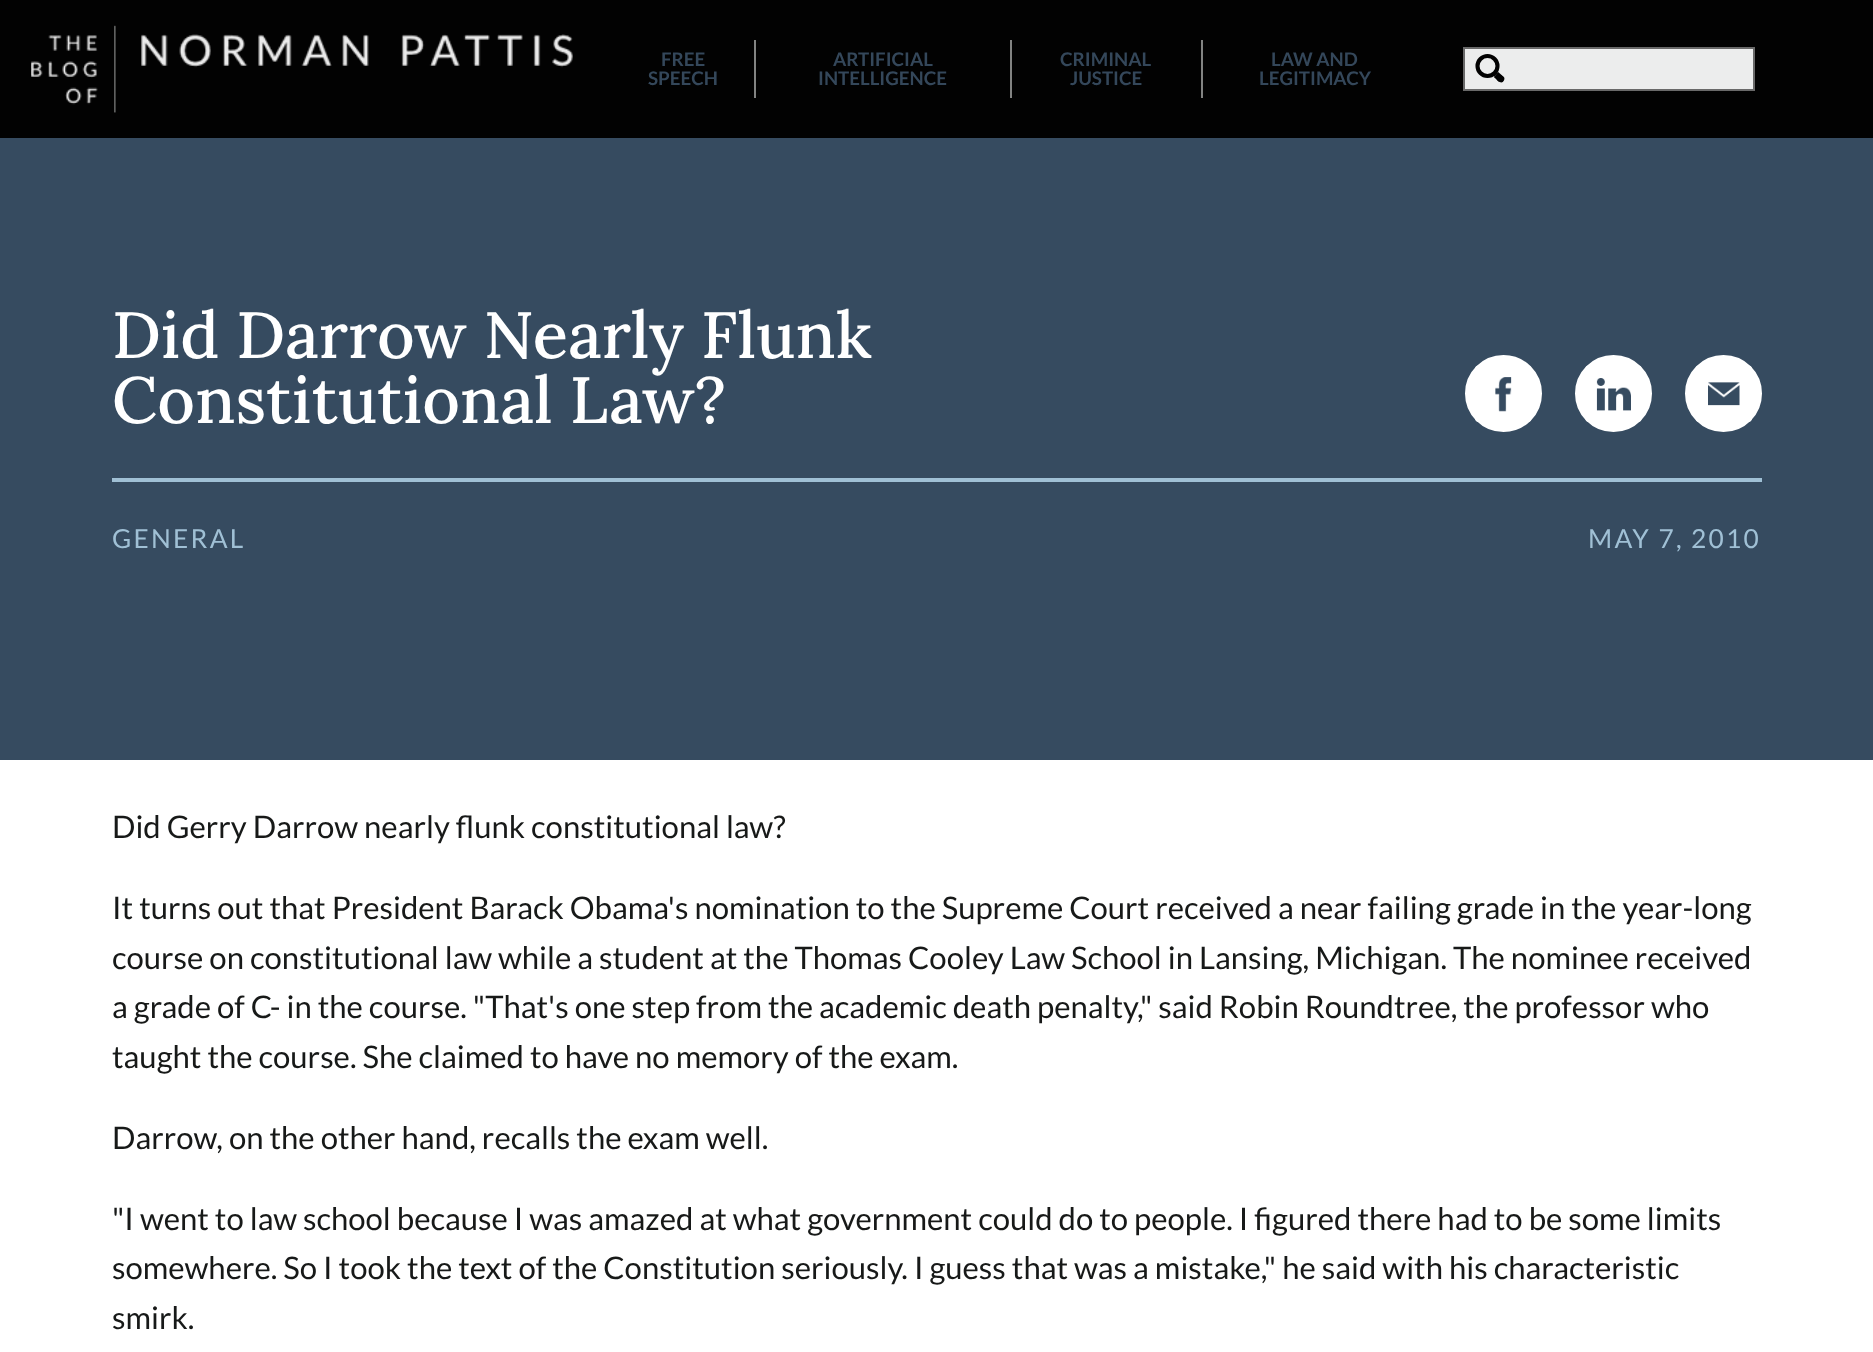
<svg xmlns="http://www.w3.org/2000/svg" width="1873" height="1352">
<style>
.a{font:bold 18.75px Lato;fill:#34475a}
.b{font:500 65.25px Lora;fill:#fff}
.c{font:26.25px Lato;letter-spacing:2.25px;fill:#a0c0d5}
.d{font:31.08px Lato;fill:#171918}
</style>
<rect width="100%" height="100%" fill="#fff"/>
<path fill="#020202" d="M0 0h1873v138H0z"/>
<image href="1.png" x="31" y="25" width="542" height="88"/>
<path fill="#828382" d="M754 40h2v58H754z"/>
<path fill="#828382" d="M1010 40h2v58H1010z"/>
<path fill="#828382" d="M1201 40h2v58H1201z"/>
<path fill="#eceded" stroke="#696969" stroke-width="2" d="M1464 48h290v42H1464z"/>
<circle fill="none" stroke="#020202" stroke-width="4.1" cx="1487.5" cy="66" r="10"/>
<path fill="none" stroke="#020202" stroke-width="4.7" stroke-linejoin="round" d="M1494.5 73l1.5 1.5"/>
<path fill="none" stroke="#020202" stroke-width="6.6" stroke-linejoin="round" d="M1496 74.5l5 4.5"/>
<path fill="none" stroke="#020202" stroke-width="6.6" stroke-linecap="round" stroke-linejoin="round" d="M1500 78.5l1 .5"/>
<path fill="#364b60" d="M0 138h1873v622H0z"/>
<image href="2.png" x="1475" y="365" width="57" height="57"/>
<circle fill="none" stroke="#fff" stroke-width="11" cx="1503.5" cy="393.5" r="33"/>
<image href="3.png" x="1585" y="365" width="57" height="57"/>
<circle fill="none" stroke="#fff" stroke-width="11" cx="1613.5" cy="393.5" r="33"/>
<image href="4.png" x="1695" y="365" width="57" height="57"/>
<circle fill="none" stroke="#fff" stroke-width="11" cx="1723.5" cy="393.5" r="33"/>
<path fill="#a0c0d5" d="M112 478h1650v4H112z"/>
<text class="a" x="661" y="66">FREE</text>
<text class="a" x="648" y="85">SPEECH</text>
<text class="a" x="833" y="66">ARTIFICIAL</text>
<text class="a" x="818" y="85">INTELLIGENCE</text>
<text class="a" x="1060" y="66">CRIMINAL</text>
<text class="a" x="1070" y="85">JUSTICE</text>
<text class="a" x="1271" y="66">LAW AND</text>
<text class="a" x="1259" y="85">LEGITIMACY</text>
<text class="b" x="112" y="358">Did Darrow Nearly Flunk</text>
<text class="b" x="112" y="423">Constitutional Law?</text>
<text class="c" x="112" y="548">GENERAL</text>
<text class="c" x="1588" y="548">MAY 7, 2010</text>
<text class="d" x="112" y="838">Did Gerry Darrow nearly flunk constitutional law?</text>
<text class="d" x="112" y="919">It turns out that President Barack Obama's nomination to the Supreme Court received a near failing grade in the year-long</text>
<text class="d" x="112" y="969">course on constitutional law while a student at the Thomas Cooley Law School in Lansing, Michigan. The nominee received</text>
<text class="d" x="112" y="1018">a grade of C- in the course. "That's one step from the academic death penalty," said Robin Roundtree, the professor who</text>
<text class="d" x="112" y="1068">taught the course. She claimed to have no memory of the exam.</text>
<text class="d" x="112" y="1149">Darrow, on the other hand, recalls the exam well.</text>
<text class="d" x="112" y="1230">"I went to law school because I was amazed at what government could do to people. I figured there had to be some limits</text>
<text class="d" x="112" y="1279">somewhere. So I took the text of the Constitution seriously. I guess that was a mistake," he said with his characteristic</text>
<text class="d" x="112" y="1329">smirk.</text>
</svg>
